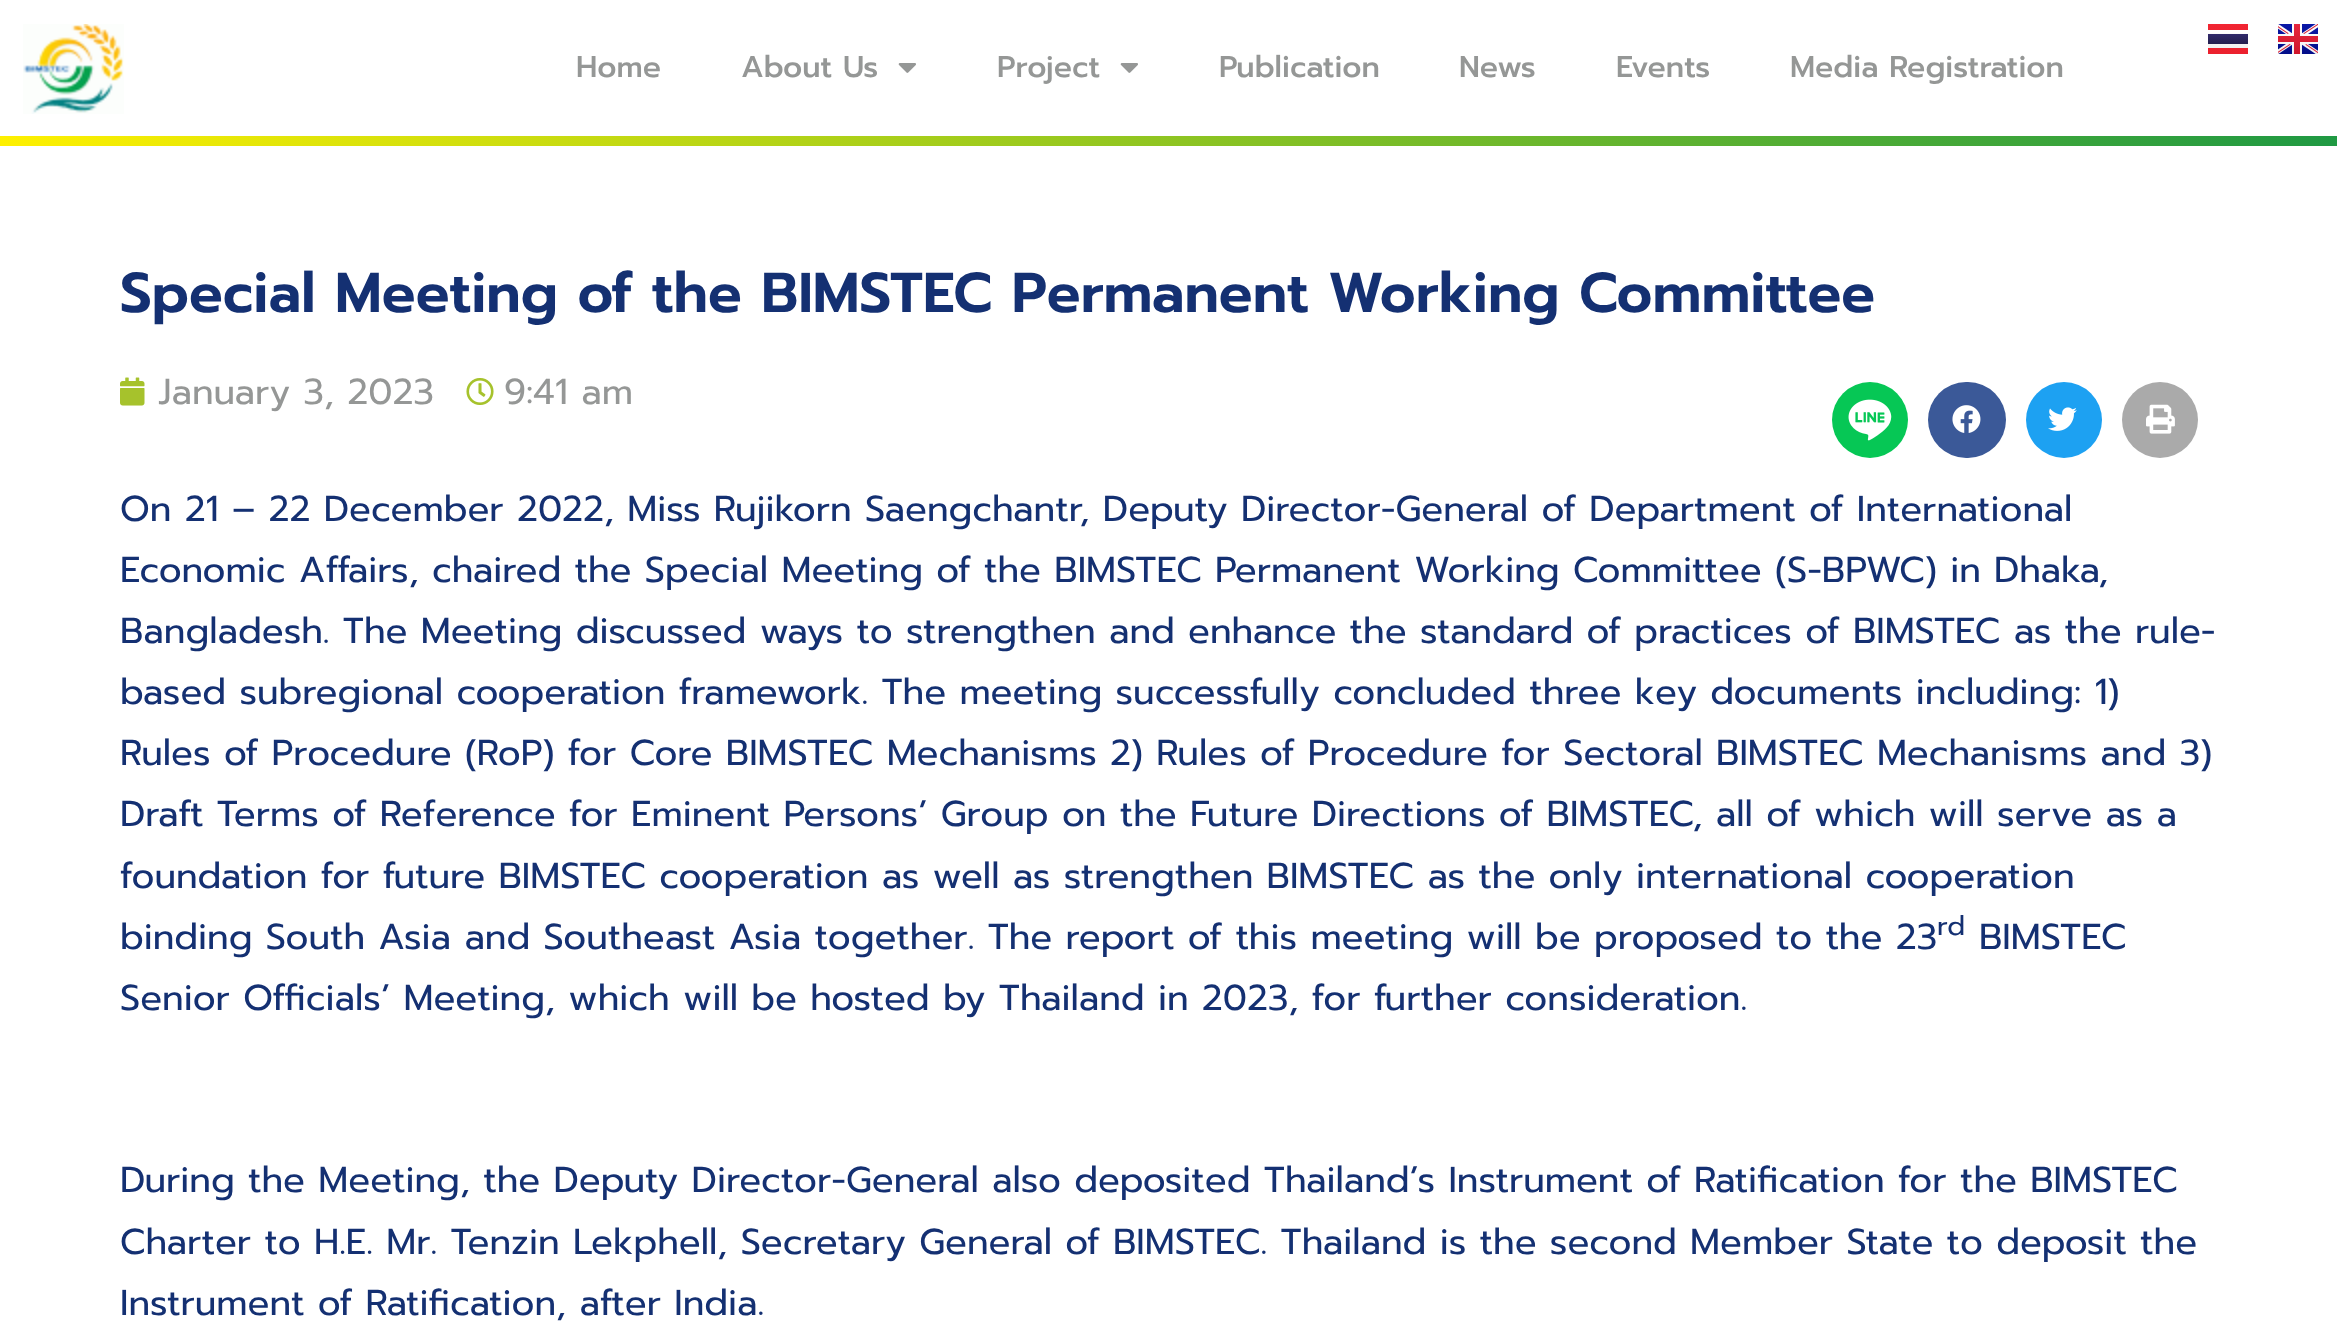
<svg xmlns="http://www.w3.org/2000/svg" width="2337" height="1343">
<style>
.a{font:500 30px Prompt;fill:#959796}
.b{font:600 56px Prompt;fill:#143072}
.c{font:36px Prompt;fill:#959796}
.d{font:36px Prompt;fill:#143072}
.e{font:27px Prompt;fill:#143072}
</style>
<defs>
<clipPath id="clip1"><path d="M2208 24h40v30H2208z"/></clipPath>
<linearGradient id="g1" gradientUnits="userSpaceOnUse" x1="2227" y1="24" x2="2227" y2="54"><stop offset="0" stop-color="#f12532"/><stop offset="1" stop-color="#eb212e"/></linearGradient>
<linearGradient id="g2" gradientUnits="userSpaceOnUse" x1="2227" y1="30" x2="2227" y2="48"><stop offset="0" stop-color="#fff"/><stop offset="1" stop-color="#f0f0f0"/></linearGradient>
<linearGradient id="g3" gradientUnits="userSpaceOnUse" x1="2227" y1="34" x2="2227" y2="44"><stop offset="0" stop-color="#322b6c"/><stop offset="1" stop-color="#241f4e"/></linearGradient>
<linearGradient id="g4" gradientUnits="userSpaceOnUse" x1="0" y1="141" x2="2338" y2="141"><stop offset="0" stop-color="#fef000"/><stop offset="1" stop-color="#1f9943"/></linearGradient>
</defs>
<rect width="100%" height="100%" fill="#fff"/>
<image href="1.png" x="23" y="24" width="101" height="90"/>
<g clip-path="url(#clip1)">
<path fill="url(#g1)" fill-rule="evenodd" d="M2206 24h42v6h-42zm0 24h42v6h-42z"/>
</g>
<path fill="url(#g2)" d="M2208 33h40v15H2208z"/>
<path fill="url(#g3)" d="M2208 34h40v10H2208z"/>
<image href="2.png" x="2278" y="24" width="40" height="30"/>
<image href="3.png" x="898" y="63" width="18" height="10"/>
<image href="3.png" x="1120" y="63" width="18" height="10"/>
<path fill="url(#g4)" d="M0 136h2337v10H0z"/>
<image href="4.png" x="120" y="377" width="25" height="29"/>
<image href="5.png" x="466" y="378" width="28" height="27"/>
<circle fill="#06c755" cx="1870" cy="420" r="38"/>
<image href="6.png" x="1848" y="399" width="44" height="42"/>
<rect fill="#3b5998" x="1928" y="382" width="78" height="76" rx="38"/>
<image href="7.png" x="1952" y="405" width="29" height="28"/>
<circle fill="#1da1f2" cx="2064" cy="420" r="38"/>
<image href="8.png" x="2048" y="407" width="29" height="24"/>
<circle fill="#aaa" cx="2160" cy="420" r="38"/>
<image href="9.png" x="2146" y="404" width="29" height="30"/>
<text class="a" x="576" y="77">Home</text>
<text class="a" x="741" y="77">About Us</text>
<text class="a" x="997" y="77">Project</text>
<text class="a" x="1219" y="77">Publication</text>
<text class="a" x="1459" y="77">News</text>
<text class="a" x="1616" y="77">Events</text>
<text class="a" x="1790" y="77">Media Registration</text>
<text class="b" x="120" y="312">Special Meeting of the BIMSTEC Permanent Working Committee</text>
<text class="c" x="158" y="404">January 3, 2023</text>
<text class="c" x="504" y="404">9:41 am</text>
<text class="d" x="120" y="521">On 21 – 22 December 2022, Miss Rujikorn Saengchantr, Deputy Director-General of Department of International</text>
<text class="d" x="120" y="582">Economic Affairs, chaired the Special Meeting of the BIMSTEC Permanent Working Committee (S-BPWC) in Dhaka,</text>
<text class="d" x="120" y="643">Bangladesh. The Meeting discussed ways to strengthen and enhance the standard of practices of BIMSTEC as the rule-</text>
<text class="d" x="120" y="704">based subregional cooperation framework. The meeting successfully concluded three key documents including: 1)</text>
<text class="d" x="120" y="765">Rules of Procedure (RoP) for Core BIMSTEC Mechanisms 2) Rules of Procedure for Sectoral BIMSTEC Mechanisms and 3)</text>
<text class="d" x="120" y="826">Draft Terms of Reference for Eminent Persons’ Group on the Future Directions of BIMSTEC, all of which will serve as a</text>
<text class="d" x="120" y="888">foundation for future BIMSTEC cooperation as well as strengthen BIMSTEC as the only international cooperation</text>
<text class="d" x="120" y="949">binding South Asia and Southeast Asia together. The report of this meeting will be proposed to the 23</text>
<text class="e" x="1937" y="935">rd</text>
<text class="d" x="1979" y="949">BIMSTEC</text>
<text class="d" x="120" y="1010">Senior Officials’ Meeting, which will be hosted by Thailand in 2023, for further consideration.</text>
<text class="d" x="120" y="1192">During the Meeting, the Deputy Director-General also deposited Thailand’s Instrument of Ratification for the BIMSTEC</text>
<text class="d" x="120" y="1254">Charter to H.E. Mr. Tenzin Lekphell, Secretary General of BIMSTEC. Thailand is the second Member State to deposit the</text>
<text class="d" x="120" y="1315">Instrument of Ratification, after India.</text>
</svg>
